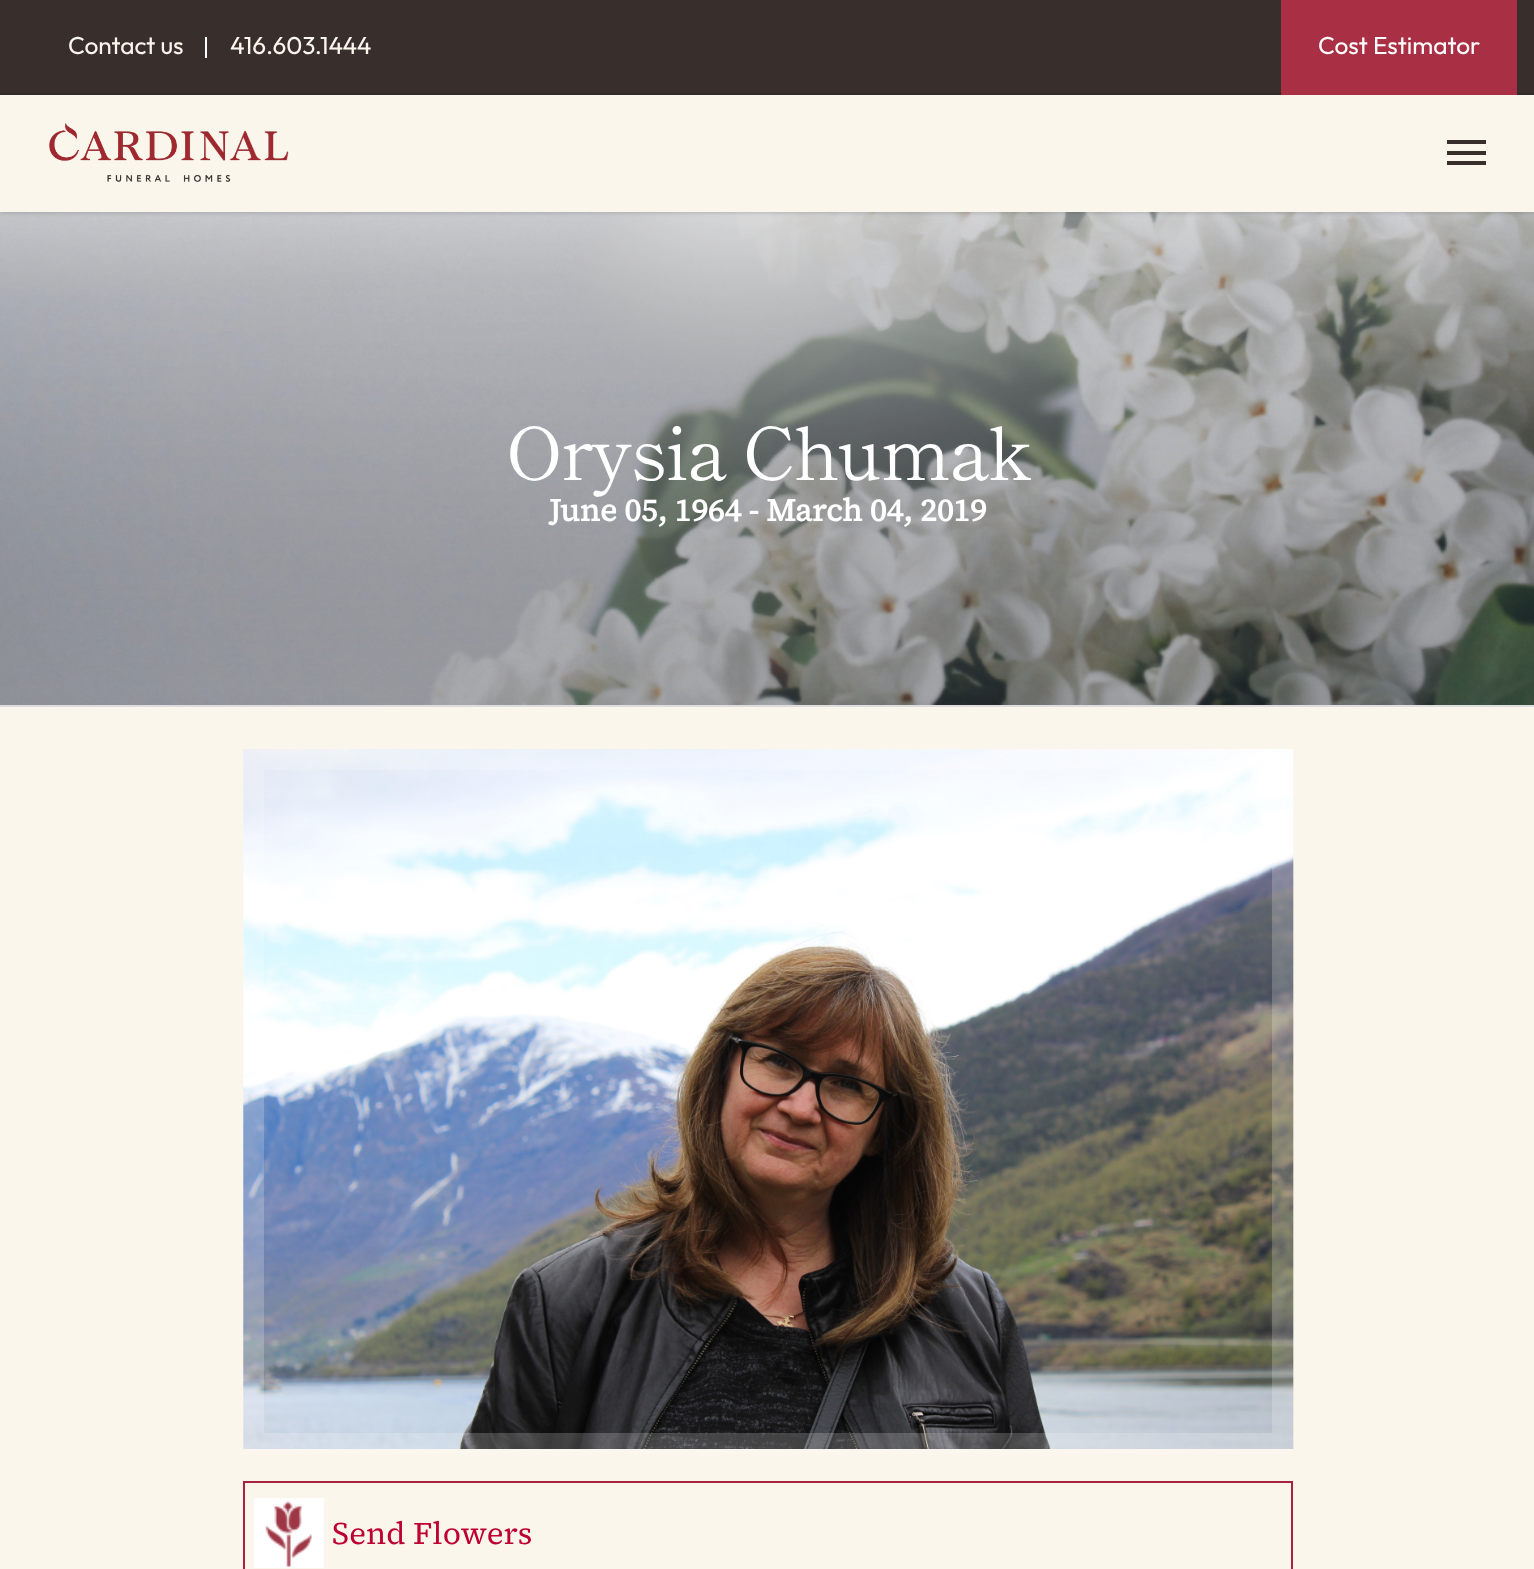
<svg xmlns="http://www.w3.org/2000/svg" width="1534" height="1569">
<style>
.a{font:24.5px Outfit;fill:#fbf6ec}
.b{font:24.5px Outfit;fill:#fff}
.c{font:73.5px Shippori Mincho;letter-spacing:-1.75px;fill:#fff}
.d{font:bold 31.5px 'Source Serif 4';fill:#fff}
.e{font:31.5px 'Source Serif 4';fill:#bd0031}
</style>
<rect width="100%" height="100%" fill="#fbf6ec"/>
<image href="2.png" x="0" y="212" width="1534" height="493"/>
<path fill="#00000038" filter="blur(2.5px)" d="M0 93h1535v119H0z"/>
<path fill="#382f2d" d="M0 0h1534v93H0z"/>
<path fill="#322a29" d="M0 93h1534v2H0z"/>
<path fill="#fff" d="M205 37h2v21H205z"/>
<path fill="#a92f44" d="M1281 0h236v95H1281z"/>
<path fill="#fbf6ec" d="M0 95h1534v117H0z"/>
<image href="1.png" x="49" y="123" width="240" height="59"/>
<path fill="#382f2d" d="M1447 140h39v4H1447z"/>
<path fill="#382f2d" d="M1447 161h39v4H1447z"/>
<path fill="#382f2d" d="M1447 151h39v4H1447z"/>
<path fill="#ddd" d="M0 705h1534v2H0z"/>
<image href="3.png" x="243" y="749" width="1051" height="700"/>
<path fill="none" stroke="#ffffff33" stroke-width="21" d="M253.5 759.5h1029v684H253.5z"/>
<image href="4.png" x="253" y="1498" width="71" height="70"/>
<path fill="none" stroke="#a9233e" stroke-width="2" d="M244 1482h1048v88H244z"/>
<text class="a" x="68" y="54">Contact us</text>
<text class="a" x="230" y="54">416.603.1444</text>
<text class="b" x="1318" y="54">Cost Estimator</text>
<text class="c" x="506" y="480">Orysia Chumak</text>
<text class="d" x="549" y="521">June 05, 1964 - March 04, 2019</text>
<text class="e" x="332" y="1544">Send Flowers</text>
</svg>
